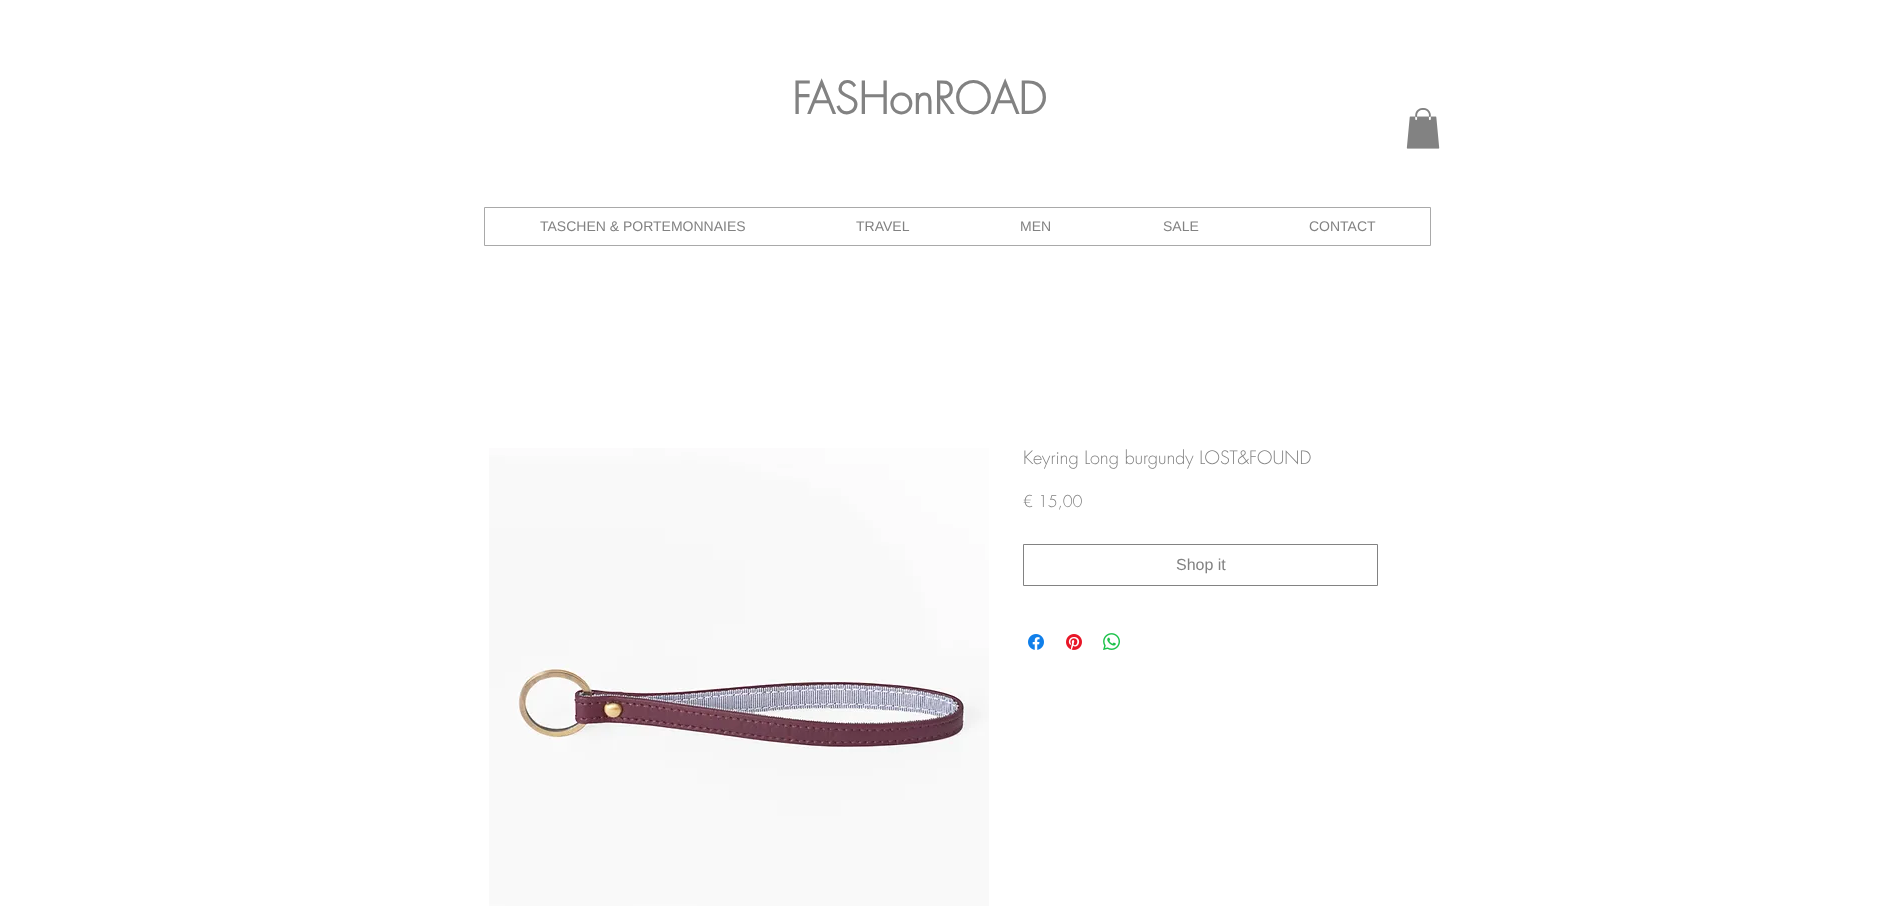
<svg xmlns="http://www.w3.org/2000/svg" width="1900" height="906">
<style>
.a{font:bold 43px futura;fill:#828282}
.b{font:14px Liberation Sans;fill:#828282}
.c{font:300 18px futura;fill:#828282}
.d{font:300 16px futura;fill:#828282}
.e{font:16px Liberation Sans;fill:#828282}
</style>
<rect width="100%" height="100%" fill="#fff"/>
<image href="1.png" x="1406" y="108" width="34" height="41"/>
<path fill="none" stroke="#a9a9a9" d="M484.5 207.5h946v38H484.5z"/>
<image href="2.png" x="489" y="448" width="500" height="458"/>
<path fill="none" stroke="#828282" d="M1023.5 544.5h354v41H1023.5z"/>
<image href="3.png" x="1028" y="634" width="16" height="16"/>
<image href="4.png" x="1066" y="634" width="16" height="16"/>
<image href="5.png" x="1103" y="633" width="17" height="17"/>
<text class="a" x="792" y="114">FASHonROAD</text>
<text class="b" x="540" y="231">TASCHEN &amp; PORTEMONNAIES</text>
<text class="b" x="856" y="231">TRAVEL</text>
<text class="b" x="1020" y="231">MEN</text>
<text class="b" x="1163" y="231">SALE</text>
<text class="b" x="1309" y="231">CONTACT</text>
<text class="c" x="1023" y="464">Keyring Long burgundy LOST&amp;FOUND</text>
<text class="d" x="1023" y="507">€ 15,00</text>
<text class="e" x="1176" y="570">Shop it</text>
</svg>
